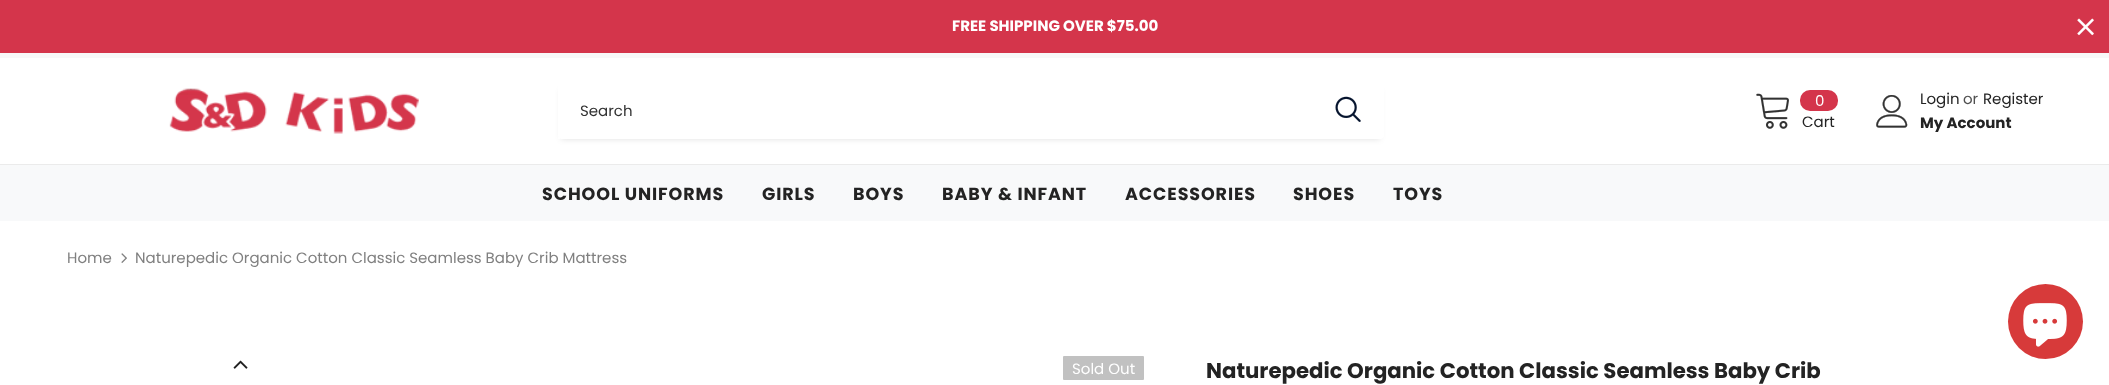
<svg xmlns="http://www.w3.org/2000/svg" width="2109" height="385">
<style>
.a{font:bold 15px Poppins;fill:#fff}
.b{font:15px Poppins;fill:#323232}
.c{font:15px Poppins;fill:#fff}
.d{font:15px Poppins;fill:#232323}
.e{font:15px Poppins;fill:#505050}
.f{font:bold 15px Poppins;fill:#232323}
.g{font:bold 17.5px Poppins;letter-spacing:0.9px;fill:#232323}
.h{font:15px Poppins;fill:#808080}
.i{font:bold 21.25px Poppins;fill:#232323}
</style>
<rect width="100%" height="100%" fill="#fff"/>
<path fill="#d4354b" d="M0 0h2109v53H0z"/>
<image href="1.png" x="2077" y="18" width="17" height="18"/>
<path fill="#f8f8f8" d="M0 53h2109v5H0z"/>
<path fill="#ebebeb" d="M0 164h2109v1H0z"/>
<image href="2.png" x="169" y="88" width="250" height="46"/>
<path fill="#0000001f" filter="blur(3px)" d="M561 90h819v49H561z"/>
<rect fill="#fff" x="558" y="83" width="826" height="56" rx="4"/>
<path fill="#fff" d="M558 137h2v2H558z"/>
<image href="3.png" x="1335" y="96" width="26" height="26"/>
<image href="4.png" x="1756" y="93" width="33" height="36"/>
<rect fill="#d4354b" x="1800" y="90" width="38" height="21" rx="10"/>
<image href="5.png" x="1876" y="95" width="32" height="33"/>
<path fill="#f8f9fa" d="M0 165h2109v56H0z"/>
<image href="6.png" x="121" y="253" width="6" height="10"/>
<image href="7.png" x="233" y="360" width="15" height="9"/>
<rect fill="#c1c1c1" x="1063" y="356" width="81" height="24" rx="1"/>
<circle fill="#d73a3a" cx="2045.5" cy="321.5" r="37.5"/>
<image href="8.png" x="2023" y="303" width="44" height="44"/>
<text class="a" x="952" y="31">FREE SHIPPING OVER $75.00</text>
<text class="b" x="580" y="116">Search</text>
<text class="c" x="1815" y="106">0</text>
<text class="d" x="1802" y="127">Cart</text>
<text class="d" x="1920" y="104">Login</text>
<text class="e" x="1963" y="104">or</text>
<text class="d" x="1983" y="104">Register</text>
<text class="f" x="1920" y="128">My Account</text>
<text class="g" x="542" y="200">SCHOOL UNIFORMS</text>
<text class="g" x="762" y="200">GIRLS</text>
<text class="g" x="853" y="200">BOYS</text>
<text class="g" x="942" y="200">BABY &amp; INFANT</text>
<text class="g" x="1125" y="200">ACCESSORIES</text>
<text class="g" x="1293" y="200">SHOES</text>
<text class="g" x="1393" y="200">TOYS</text>
<text class="h" x="67" y="263">Home</text>
<text class="h" x="135" y="263">Naturepedic Organic Cotton Classic Seamless Baby Crib Mattress</text>
<text class="c" x="1072" y="374">Sold Out</text>
<text class="i" x="1206" y="378">Naturepedic Organic Cotton Classic Seamless Baby Crib</text>
</svg>
